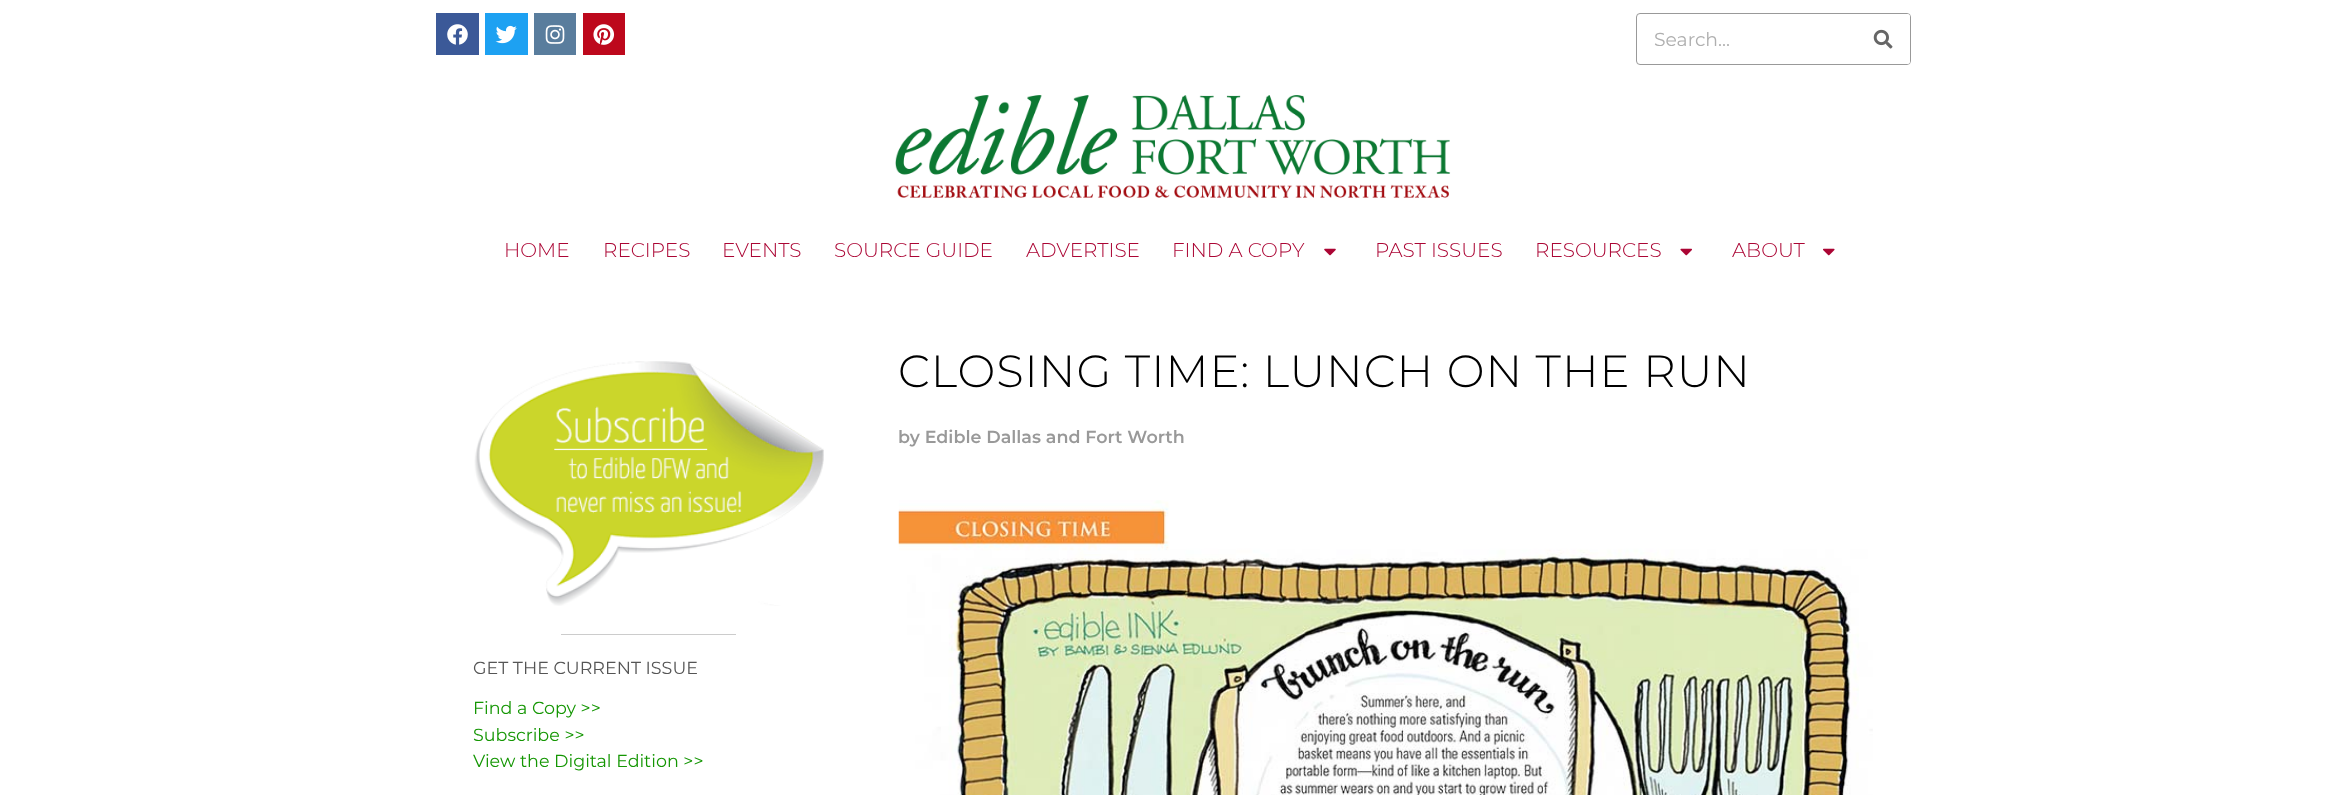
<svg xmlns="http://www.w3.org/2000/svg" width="2346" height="795">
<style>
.a{font:18.75px Montserrat;fill:#afafaf}
.b{font:300 20px Montserrat;fill:#ab0534}
.c{font:300 45px Montserrat;letter-spacing:1px;fill:#000}
.d{font:600 17.5px Montserrat;fill:#999}
.e{font:17.5px Montserrat;fill:#555}
.f{font:17.5px Montserrat;fill:#149603}
</style>
<rect width="100%" height="100%" fill="#fff"/>
<path fill="#3b5998" d="M436 13h43v42H436z"/>
<image href="1.png" x="447" y="24" width="21" height="21"/>
<path fill="#1da1f2" d="M485 13h43v42H485z"/>
<image href="2.png" x="495" y="25" width="22" height="19"/>
<path fill="#597d9d" d="M534 13h42v42H534z"/>
<image href="3.png" x="545" y="25" width="20" height="19"/>
<path fill="#bd081c" d="M583 13h42v42H583z"/>
<image href="4.png" x="593" y="24" width="22" height="21"/>
<rect fill="none" stroke="#999" x="1636.5" y="13.5" width="274" height="51" rx="3.5"/>
<path fill="#fff" d="M1858 14h49.5c1.5 0 2.5 1 2.5 2.5v45c0 1.5-1 2.5-2.5 2.5h-49.5z"/>
<image href="5.png" x="1873" y="29" width="20" height="20"/>
<image href="6.png" x="895" y="95" width="556" height="103"/>
<image href="7.png" x="1324" y="248" width="12" height="8"/>
<image href="8.png" x="1680" y="248" width="12" height="8"/>
<image href="9.png" x="1823" y="248" width="12" height="8"/>
<image href="10.png" x="898" y="500" width="975" height="295"/>
<image href="11.png" x="474" y="361" width="350" height="245"/>
<path fill="#ccc" d="M561 634h175v1H561z"/>
<text class="a" x="1654" y="46">Search...</text>
<text class="b" x="504" y="257">HOME</text>
<text class="b" x="603" y="257">RECIPES</text>
<text class="b" x="722" y="257">EVENTS</text>
<text class="b" x="834" y="257">SOURCE GUIDE</text>
<text class="b" x="1026" y="257">ADVERTISE</text>
<text class="b" x="1172" y="257">FIND A COPY</text>
<text class="b" x="1375" y="257">PAST ISSUES</text>
<text class="b" x="1535" y="257">RESOURCES</text>
<text class="b" x="1732" y="257">ABOUT</text>
<text class="c" x="898" y="387">CLOSING TIME: LUNCH ON THE RUN</text>
<text class="d" x="898" y="443">by Edible Dallas and Fort Worth</text>
<text class="e" x="473" y="674">GET THE CURRENT ISSUE</text>
<text class="f" x="473" y="714">Find a Copy &gt;&gt;</text>
<text class="f" x="473" y="741">Subscribe &gt;&gt;</text>
<text class="f" x="473" y="767">View the Digital Edition &gt;&gt;</text>
</svg>
